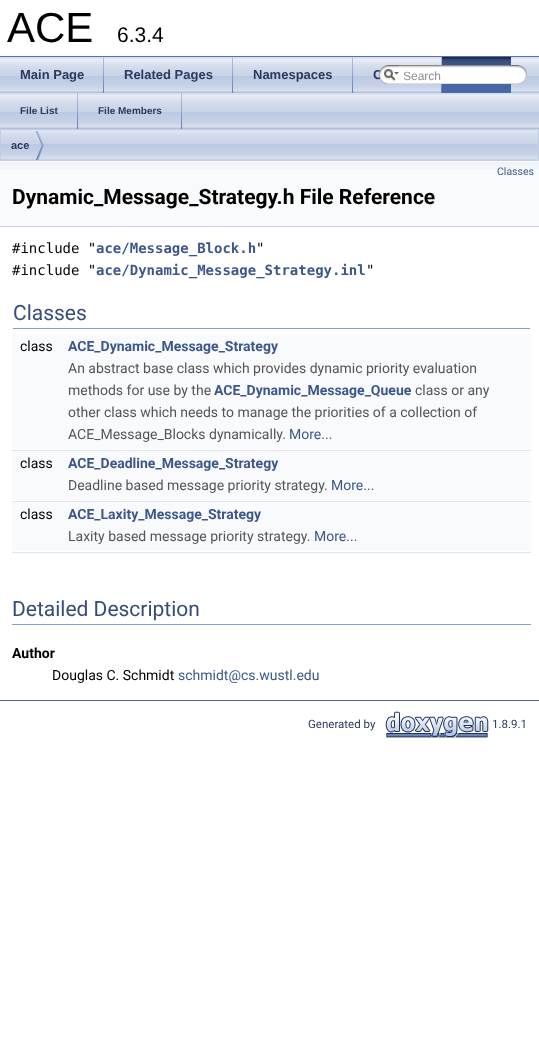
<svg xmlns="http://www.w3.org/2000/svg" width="539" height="1042">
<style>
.a{font:42px Liberation Sans;fill:#000}
.b{font:21px Liberation Sans;fill:#000}
.c{font:bold 13px Liberation Sans;fill:#283a5d}
.d{font:12px Liberation Sans;fill:#909090}
.e{font:bold 10px Liberation Sans;fill:#283a5d}
.f{font:bold 11px Liberation Sans;fill:#283a5d}
.g{font:10.5px Roboto;fill:#3d578c}
.h{font:bold 21px Roboto;fill:#000}
.i{font:14px DejaVu Sans Mono;fill:#000}
.j{font:bold 14px DejaVu Sans Mono;fill:#3d578c}
.k{font:21px Roboto;fill:#354c7b}
.l{font:14px Roboto;fill:#000}
.m{font:bold 14px Roboto;fill:#3d578c}
.n{font:14px Roboto;fill:#555}
.o{font:14px Roboto;fill:#3d578c}
.p{font:bold 14px Roboto;fill:#000}
.q{font:11.5px Roboto;fill:#283a5d}
</style>
<rect width="100%" height="100%" fill="#fff"/>
<path fill="#5373b4" d="M0 56h539v1H0z"/>
<image href="1.png" x="0" y="57" width="539" height="36"/>
<image href="2.png" x="103" y="57" width="1" height="36"/>
<image href="2.png" x="232" y="57" width="1" height="36"/>
<image href="2.png" x="352" y="57" width="1" height="36"/>
<image href="2.png" x="441" y="57" width="1" height="36"/>
<image href="7.png" x="442" y="57" width="69" height="36"/>
<image href="5.png" x="399" y="65" width="110" height="19"/>
<image href="6.png" x="509" y="65" width="18" height="19"/>
<image href="1.png" x="0" y="93" width="539" height="36"/>
<image href="2.png" x="77" y="93" width="1" height="36"/>
<image href="2.png" x="181" y="93" width="1" height="36"/>
<image href="8.png" x="1" y="130" width="537" height="30"/>
<path fill="none" stroke="#c2cde4" d="M0.5 129.5h538v31H0.5z"/>
<image href="9.png" x="36" y="131" width="8" height="29"/>
<path fill="#f9fafc" d="M0 169h539v57H0z"/>
<image href="10.png" x="0" y="161" width="539" height="8"/>
<path fill="#c4cfe5" d="M0 226h539v1H0z"/>
<path fill="#879ecb" d="M13 328h517v1H13z"/>
<path fill="#f9fafc" d="M12 334h519v23H12z"/>
<path fill="#f9fafc" d="M12 357h519v92H12z"/>
<path fill="#dee4f0" d="M12 450h519v1H12z"/>
<path fill="#f9fafc" d="M12 451h519v23H12z"/>
<path fill="#f9fafc" d="M12 474h519v26H12z"/>
<path fill="#dee4f0" d="M12 501h519v1H12z"/>
<path fill="#f9fafc" d="M12 502h519v23H12z"/>
<path fill="#f9fafc" d="M12 525h519v26H12z"/>
<path fill="#dee4f0" d="M12 552h519v1H12z"/>
<path fill="#879ecb" d="M12 624h519v1H12z"/>
<path fill="#4a6aaa" d="M0 700h539v1H0z"/>
<image href="11.png" x="385" y="711" width="104" height="27"/>
<text class="a" x="7" y="42">ACE</text>
<text class="b" x="117" y="42">6.3.4</text>
<text class="c" x="20" y="79">Main Page</text>
<text class="c" x="124" y="79">Related Pages</text>
<text class="c" x="253" y="79">Namespaces</text>
<text class="c" x="373" y="79">C</text>
<image href="3.png" x="379" y="65" width="20" height="19"/>
<image href="4.png" x="384" y="69" width="15" height="12"/>
<text class="d" x="403" y="80">Search</text>
<text class="e" x="20" y="114">File List</text>
<text class="e" x="98" y="114">File Members</text>
<text class="f" x="11" y="149">ace</text>
<text class="g" x="497" y="175">Classes</text>
<text class="h" x="12" y="204">Dynamic_Message_Strategy.h File Reference</text>
<text class="i" x="12" y="253">#include "</text>
<text class="j" x="96" y="253">ace/Message_Block.h</text>
<text class="i" x="256" y="253">"</text>
<text class="i" x="12" y="275">#include "</text>
<text class="j" x="96" y="275">ace/Dynamic_Message_Strategy.inl</text>
<text class="i" x="366" y="275">"</text>
<text class="k" x="13" y="320">Classes</text>
<text class="l" x="20" y="351">class</text>
<text class="m" x="68" y="351">ACE_Dynamic_Message_Strategy</text>
<text class="n" x="68" y="373">An abstract base class which provides dynamic priority evaluation</text>
<text class="n" x="68" y="395">methods for use by the</text>
<text class="m" x="214" y="395">ACE_Dynamic_Message_Queue</text>
<text class="n" x="415" y="395">class or any</text>
<text class="n" x="68" y="417">other class which needs to manage the priorities of a collection of</text>
<text class="n" x="68" y="439">ACE_Message_Blocks dynamically.</text>
<text class="o" x="289" y="439">More...</text>
<text class="l" x="20" y="468">class</text>
<text class="m" x="68" y="468">ACE_Deadline_Message_Strategy</text>
<text class="n" x="68" y="490">Deadline based message priority strategy.</text>
<text class="o" x="331" y="490">More...</text>
<text class="l" x="20" y="519">class</text>
<text class="m" x="68" y="519">ACE_Laxity_Message_Strategy</text>
<text class="n" x="68" y="541">Laxity based message priority strategy.</text>
<text class="o" x="314" y="541">More...</text>
<text class="k" x="12" y="616">Detailed Description</text>
<text class="p" x="12" y="658">Author</text>
<text class="l" x="52" y="680">Douglas C. Schmidt</text>
<text class="o" x="178" y="680">schmidt@cs.wustl.edu</text>
<text class="q" x="308" y="728">Generated by</text>
<text class="q" x="492" y="728">1.8.9.1</text>
</svg>
